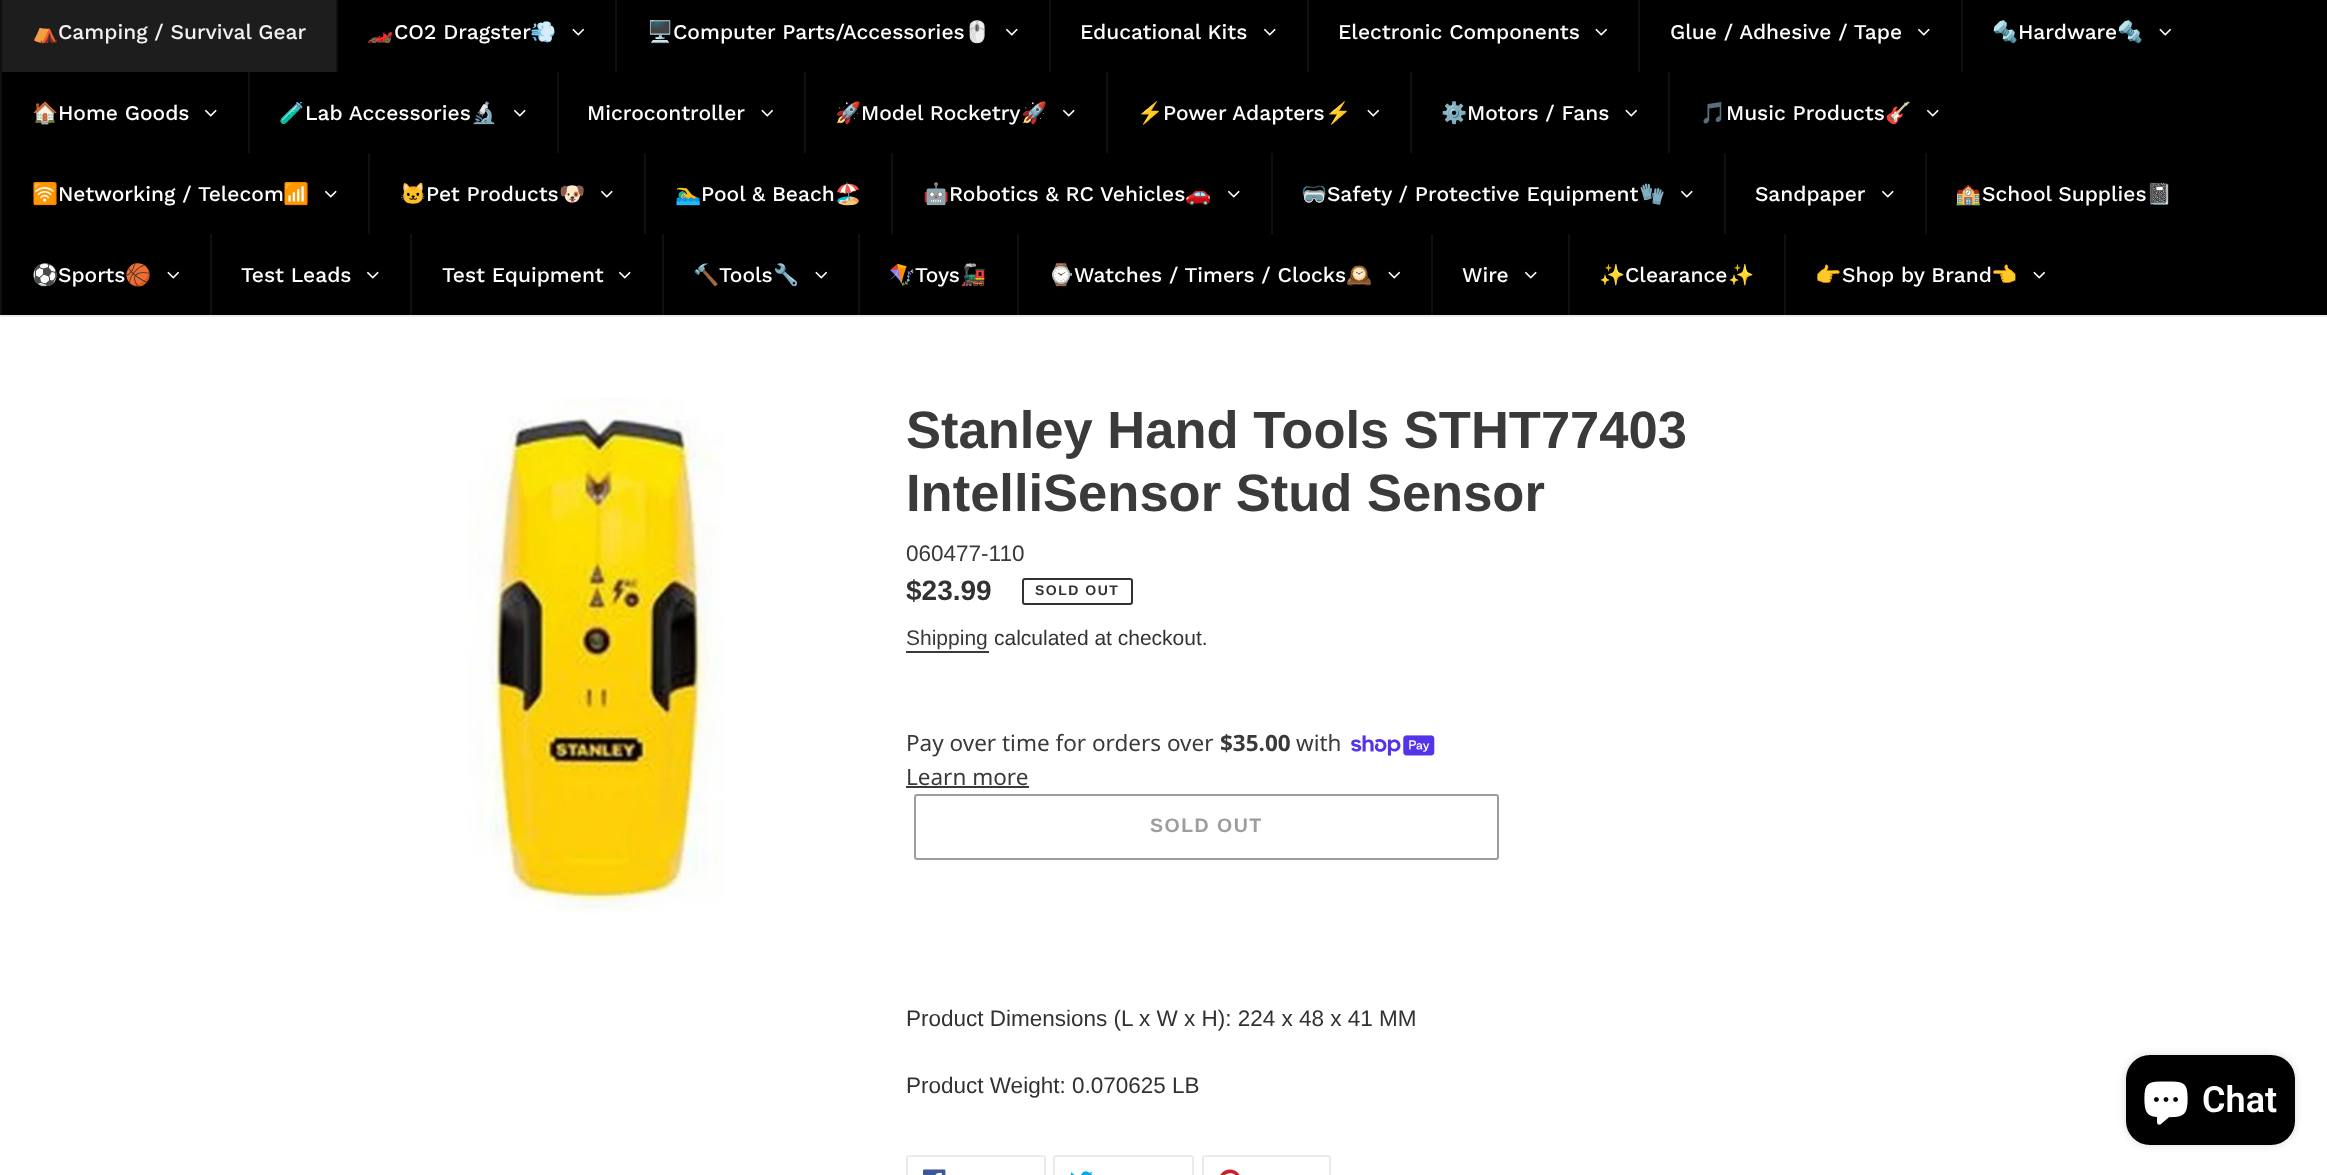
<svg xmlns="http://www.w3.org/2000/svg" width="2327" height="1175">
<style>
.a{font:21px Noto Color Emoji;fill:#f6f1f1}
.b{font:500 21px Work Sans;fill:#f6f1f1}
.c{font:21px Noto Color Emoji;fill:#fff}
.d{font:500 21px Work Sans;fill:#fff}
.e{font:bold 52.5px Liberation Sans;fill:#3a3a3a}
.f{font:22.5px Liberation Sans;fill:#3a3a3a}
.g{font:bold 28px Liberation Sans;fill:#333232}
.h{font:bold 14px Liberation Sans;letter-spacing:1.5px;fill:#333232}
.i{font:21px Liberation Sans;fill:#3a3a3a}
.j{font:21px Liberation Sans;fill:#333232}
.k{font:22.5px Noto Sans;fill:#3a3a3a}
.l{font:bold 22.5px Noto Sans;fill:#3a3a3a}
.m{font:bold 19.5px Liberation Sans;letter-spacing:1.5px;fill:#9d9d9d}
.n{font:22.5px Liberation Sans;fill:#333232}
.o{font:600 36px Roboto;fill:#fff}
</style>
<rect width="100%" height="100%" fill="#fff"/>
<path fill="#ebebeb" d="M0 315h2327v2H0z"/>
<path fill="#000" d="M2 0h2325v315H2z"/>
<path fill="#0f0f0f" d="M0 0h2v315H0z"/>
<path fill="#1d1d1d" d="M2 0h334v72H2z"/>
<path fill="#0f0f0f" d="M336 0h2v72H336z"/>
<image href="1.png" x="572" y="28" width="12" height="8"/>
<path fill="#0f0f0f" d="M615 0h2v72H615z"/>
<image href="2.png" x="1006" y="28" width="12" height="8"/>
<path fill="#0f0f0f" d="M1049 0h2v72H1049z"/>
<image href="2.png" x="1264" y="28" width="12" height="8"/>
<path fill="#0f0f0f" d="M1307 0h2v72H1307z"/>
<image href="1.png" x="1595" y="28" width="12" height="8"/>
<path fill="#0f0f0f" d="M1638 0h2v72H1638z"/>
<image href="2.png" x="1918" y="28" width="12" height="8"/>
<path fill="#0f0f0f" d="M1961 0h2v72H1961z"/>
<image href="1.png" x="2159" y="28" width="12" height="8"/>
<image href="2.png" x="205" y="109" width="12" height="8"/>
<path fill="#0f0f0f" d="M248 72h2v81H248z"/>
<image href="2.png" x="514" y="109" width="12" height="8"/>
<path fill="#0f0f0f" d="M557 72h2v81H557z"/>
<image href="1.png" x="761" y="109" width="12" height="8"/>
<path fill="#0f0f0f" d="M804 72h2v81H804z"/>
<image href="2.png" x="1063" y="109" width="12" height="8"/>
<path fill="#0f0f0f" d="M1106 72h2v81H1106z"/>
<image href="1.png" x="1367" y="109" width="12" height="8"/>
<path fill="#0f0f0f" d="M1410 72h2v81H1410z"/>
<image href="1.png" x="1625" y="109" width="12" height="8"/>
<path fill="#0f0f0f" d="M1668 72h2v81H1668z"/>
<image href="2.png" x="1927" y="109" width="12" height="8"/>
<image href="2.png" x="325" y="190" width="12" height="8"/>
<path fill="#0f0f0f" d="M368 153h2v81H368z"/>
<image href="2.png" x="601" y="190" width="12" height="8"/>
<path fill="#0f0f0f" d="M644 153h2v81H644z"/>
<path fill="#0f0f0f" d="M891 153h2v81H891z"/>
<image href="2.png" x="1228" y="190" width="12" height="8"/>
<path fill="#0f0f0f" d="M1271 153h2v81H1271z"/>
<image href="2.png" x="1681" y="190" width="12" height="8"/>
<path fill="#0f0f0f" d="M1724 153h2v81H1724z"/>
<image href="2.png" x="1882" y="190" width="12" height="8"/>
<path fill="#0f0f0f" d="M1925 153h2v81H1925z"/>
<image href="1.png" x="167" y="271" width="12" height="8"/>
<path fill="#0f0f0f" d="M210 234h2v81H210z"/>
<image href="2.png" x="367" y="271" width="12" height="8"/>
<path fill="#0f0f0f" d="M410 234h2v81H410z"/>
<image href="2.png" x="619" y="271" width="12" height="8"/>
<path fill="#0f0f0f" d="M662 234h2v81H662z"/>
<image href="1.png" x="815" y="271" width="12" height="8"/>
<path fill="#0f0f0f" d="M858 234h2v81H858z"/>
<path fill="#0f0f0f" d="M1017 234h2v81H1017z"/>
<image href="1.png" x="1388" y="271" width="12" height="8"/>
<path fill="#0f0f0f" d="M1431 234h2v81H1431z"/>
<image href="2.png" x="1525" y="271" width="12" height="8"/>
<path fill="#0f0f0f" d="M1568 234h2v81H1568z"/>
<path fill="#0f0f0f" d="M1784 234h2v81H1784z"/>
<image href="1.png" x="2033" y="271" width="12" height="8"/>
<image href="3.png" x="467" y="398" width="257" height="515"/>
<rect fill="none" stroke="#333232" stroke-width="2" x="1023" y="579" width="109" height="25" rx="2"/>
<path fill="#3a3a3a" d="M906 651h83v2H906z"/>
<image href="4.png" x="1351" y="735" width="84" height="21"/>
<path fill="#3a3a3a" d="M906 786h123v2H906z"/>
<rect fill="none" stroke="#9d9d9d" stroke-width="2" x="915" y="795" width="583" height="64" rx="2"/>
<rect fill="none" stroke="#ebebeb" stroke-width="2" x="907" y="1156" width="138" height="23" rx="2"/>
<image href="5.png" x="923" y="1169" width="23" height="6"/>
<rect fill="none" stroke="#ebebeb" stroke-width="2" x="1054" y="1156" width="139" height="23" rx="2"/>
<image href="6.png" x="1070" y="1171" width="23" height="4"/>
<rect fill="none" stroke="#ebebeb" stroke-width="2" x="1203" y="1156" width="127" height="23" rx="2"/>
<image href="7.png" x="1220" y="1169" width="20" height="6"/>
<rect fill="#00000026" filter="blur(4px)" x="2126" y="1055" width="169" height="90" rx="24"/>
<rect fill="#000" x="2126" y="1055" width="169" height="90" rx="24"/>
<image href="8.png" x="2144" y="1081" width="44" height="44"/>
<text class="a" x="32" y="39">⛺</text>
<text class="b" x="58" y="39">Camping / Survival Gear</text>
<text class="c" x="367" y="39">🏎️</text>
<text class="d" x="394" y="39">CO2 Dragster</text>
<text class="c" x="530" y="39">💨</text>
<text class="c" x="647" y="39">🖥️</text>
<text class="d" x="673" y="39">Computer Parts/Accessories</text>
<text class="c" x="964" y="39">🖱️</text>
<text class="d" x="1080" y="39">Educational Kits</text>
<text class="d" x="1338" y="39">Electronic Components</text>
<text class="d" x="1670" y="39">Glue / Adhesive / Tape</text>
<text class="c" x="1992" y="39">🔩</text>
<text class="d" x="2018" y="39">Hardware</text>
<text class="c" x="2117" y="39">🔩</text>
<text class="c" x="32" y="120">🏠</text>
<text class="d" x="58" y="120">Home Goods</text>
<text class="c" x="279" y="120">🧪</text>
<text class="d" x="305" y="120">Lab Accessories</text>
<text class="c" x="471" y="120">🔬</text>
<text class="d" x="587" y="120">Microcontroller</text>
<text class="c" x="835" y="120">🚀</text>
<text class="d" x="861" y="120">Model Rocketry</text>
<text class="c" x="1021" y="120">🚀</text>
<text class="c" x="1137" y="120">⚡</text>
<text class="d" x="1163" y="120">Power Adapters</text>
<text class="c" x="1325" y="120">⚡</text>
<text class="c" x="1441" y="120">⚙️</text>
<text class="d" x="1467" y="120">Motors / Fans</text>
<text class="c" x="1700" y="120">🎵</text>
<text class="d" x="1726" y="120">Music Products</text>
<text class="c" x="1885" y="120">🎸</text>
<text class="c" x="32" y="201">🛜</text>
<text class="d" x="58" y="201">Networking / Telecom</text>
<text class="c" x="283" y="201">📶</text>
<text class="c" x="400" y="201">🐱</text>
<text class="d" x="426" y="201">Pet Products</text>
<text class="c" x="559" y="201">🐶</text>
<text class="c" x="675" y="201">🏊‍♂️</text>
<text class="d" x="701" y="201">Pool &amp; Beach</text>
<text class="c" x="835" y="201">🏖</text>
<text class="c" x="923" y="201">🤖</text>
<text class="d" x="949" y="201">Robotics &amp; RC Vehicles</text>
<text class="c" x="1185" y="201">🚗</text>
<text class="c" x="1301" y="201">🥽</text>
<text class="d" x="1327" y="201">Safety / Protective Equipment</text>
<text class="c" x="1639" y="201">🧤</text>
<text class="d" x="1755" y="201">Sandpaper</text>
<text class="c" x="1955" y="201">🏫</text>
<text class="d" x="1982" y="201">School Supplies</text>
<text class="c" x="2146" y="201">📓</text>
<text class="c" x="32" y="282">⚽</text>
<text class="d" x="58" y="282">Sports</text>
<text class="c" x="125" y="282">🏀</text>
<text class="d" x="241" y="282">Test Leads</text>
<text class="d" x="442" y="282">Test Equipment</text>
<text class="c" x="693" y="282">🔨</text>
<text class="d" x="719" y="282">Tools</text>
<text class="c" x="773" y="282">🔧</text>
<text class="c" x="889" y="282">🪁</text>
<text class="d" x="915" y="282">Toys</text>
<text class="c" x="960" y="282">🚂</text>
<text class="c" x="1048" y="282">⌚</text>
<text class="d" x="1074" y="282">Watches / Timers / Clocks</text>
<text class="c" x="1346" y="282">🕰️</text>
<text class="d" x="1462" y="282">Wire</text>
<text class="c" x="1599" y="282">✨</text>
<text class="d" x="1625" y="282">Clearance</text>
<text class="c" x="1728" y="282">✨</text>
<text class="c" x="1815" y="282">👉</text>
<text class="d" x="1842" y="282">Shop by Brand</text>
<text class="c" x="1991" y="282">👈</text>
<text class="e" x="906" y="448">Stanley Hand Tools STHT77403</text>
<text class="e" x="906" y="511">IntelliSensor Stud Sensor</text>
<text class="f" x="906" y="561">060477-110</text>
<text class="g" x="906" y="600">$23.99</text>
<text class="h" x="1035" y="595">SOLD OUT</text>
<text class="i" x="906" y="645">Shipping</text>
<text class="j" x="994" y="645">calculated at checkout.</text>
<text class="k" x="906" y="751">Pay over time for orders over</text>
<text class="l" x="1220" y="751">$35.00</text>
<text class="k" x="1296" y="751">with</text>
<text class="k" x="906" y="785">Learn more</text>
<text class="m" x="1150" y="832">SOLD OUT</text>
<text class="n" x="906" y="1026">Product Dimensions (L x W x H): 224 x 48 x 41 MM</text>
<text class="n" x="906" y="1093">Product Weight: 0.070625 LB</text>
<text class="o" x="2202" y="1112">Chat</text>
</svg>
